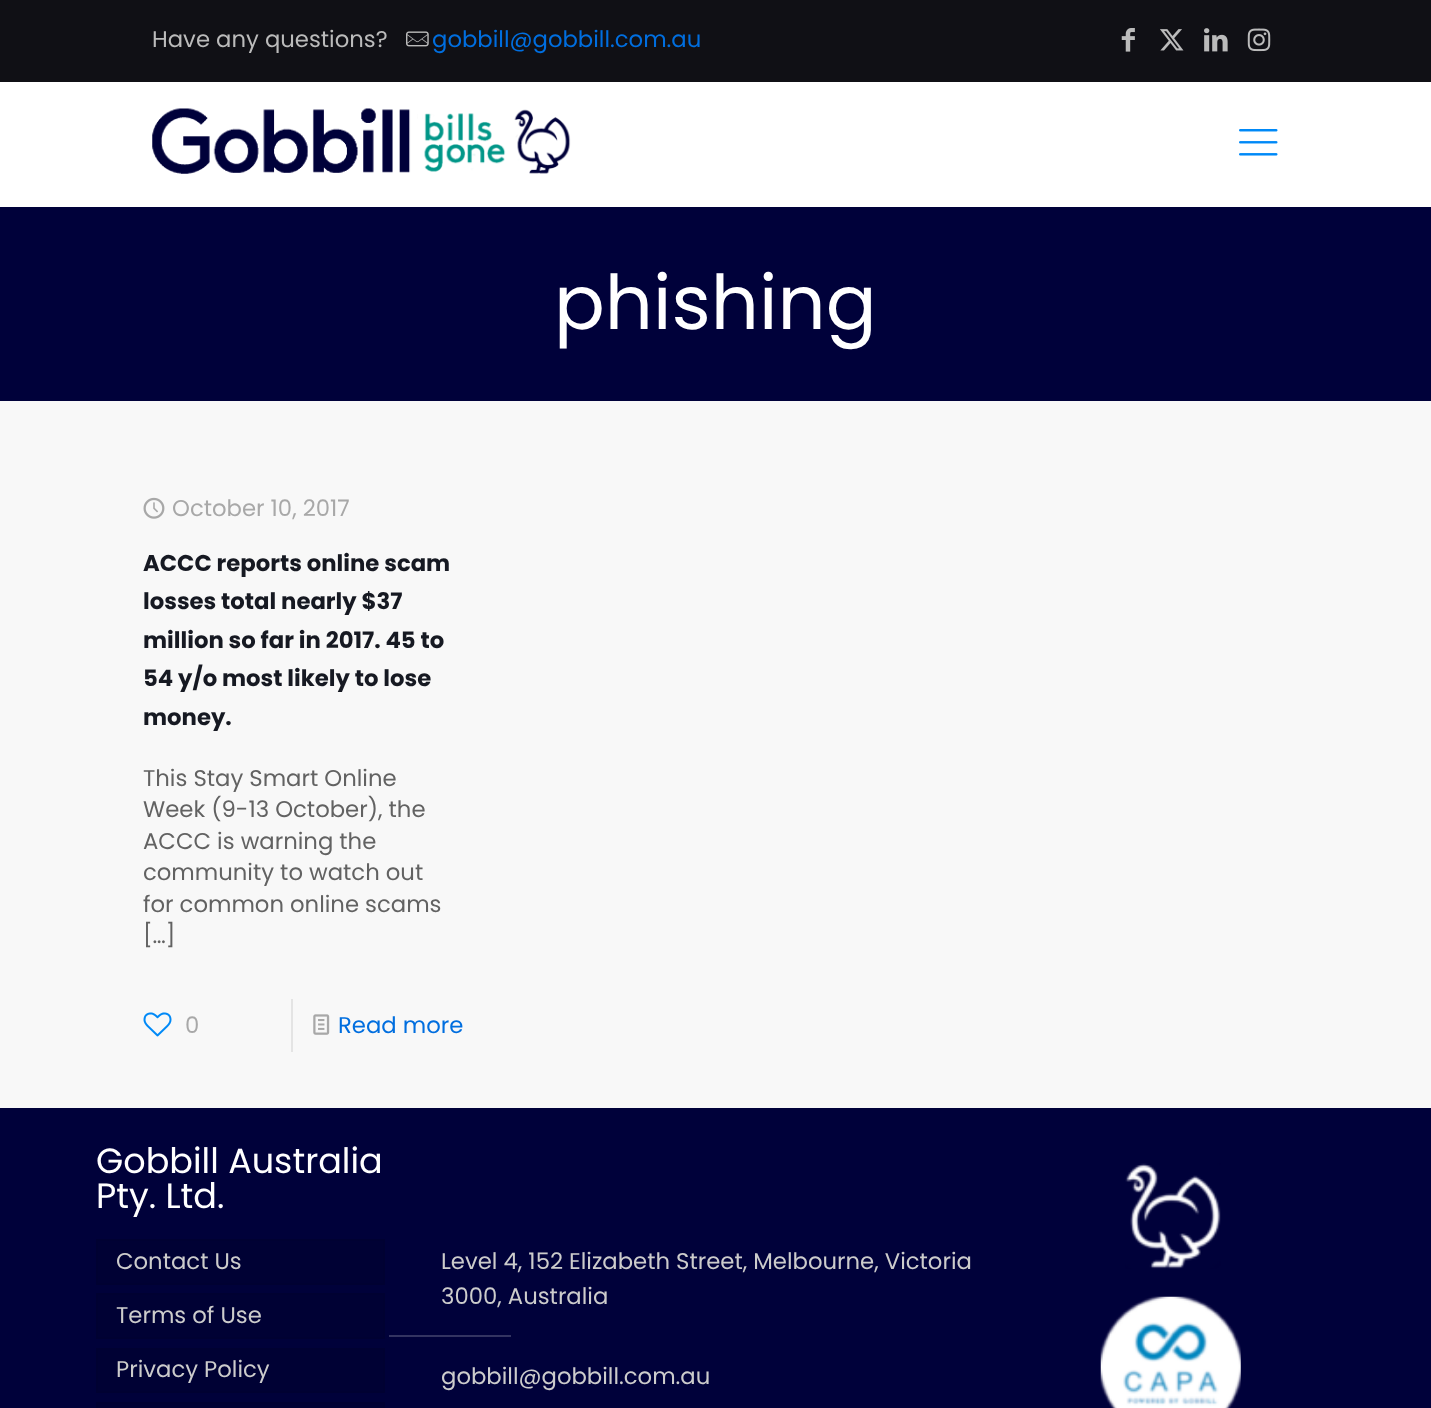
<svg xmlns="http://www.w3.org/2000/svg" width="1431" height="1408">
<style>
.a{font:22.75px Poppins;fill:#bbb}
.b{font:22.75px Poppins;fill:#006edf}
.c{font:75.25px Poppins;fill:#fff}
.d{font:22.75px Poppins;fill:#a8a8a8}
.e{font:bold 22.75px Poppins;fill:#161922}
.f{font:22.75px Poppins;fill:#626262}
.g{font:35px Poppins;fill:#fff}
.h{font:22.75px Poppins;fill:#ccc}
</style>
<rect width="100%" height="100%" fill="#f8f8f8"/>
<path fill="#00013a" d="M0 207h1431v194H0z"/>
<path fill="#101015" d="M0 0h1431v82H0z"/>
<image href="1.png" x="406" y="31" width="23" height="16"/>
<image href="2.png" x="1121" y="28" width="14" height="24"/>
<image href="3.png" x="1160" y="29" width="24" height="22"/>
<image href="4.png" x="1204" y="28" width="24" height="24"/>
<image href="5.png" x="1247" y="28" width="24" height="24"/>
<path fill="#fff" d="M0 82h1431v125H0z"/>
<image href="6.png" x="152" y="108" width="419" height="66"/>
<image href="7.png" x="1239" y="129" width="39" height="27"/>
<image href="8.png" x="143" y="497" width="22" height="22"/>
<image href="9.png" x="143" y="1012" width="29" height="25"/>
<path fill="#e4e4e4" d="M291 999h2v53H291z"/>
<image href="10.png" x="313" y="1014" width="17" height="21"/>
<path fill="#00013a" d="M0 1108h1431v300H0z"/>
<path fill="#000134" stroke="#000132" stroke-width="2" d="M97 1240h287v44H97z"/>
<path fill="#000134" stroke="#000132" stroke-width="2" d="M97 1294h287v44H97z"/>
<path fill="#000134" stroke="#000132" stroke-width="2" d="M97 1349h287v43H97z"/>
<path fill="#000134" stroke="#000132" stroke-width="2" d="M97 1403h287v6H97z"/>
<path fill="#333461" d="M389 1335h122v2H389z"/>
<image href="11.png" x="1125" y="1163" width="96" height="106"/>
<image href="12.png" x="1100" y="1296" width="141" height="112"/>
<text class="a" x="152" y="47">Have any questions?</text>
<text class="b" x="432" y="47">gobbill@gobbill.com.au</text>
<text class="c" x="554" y="329">phishing</text>
<text class="d" x="172" y="516">October 10, 2017</text>
<text class="e" x="143" y="571">ACCC reports online scam</text>
<text class="e" x="143" y="609">losses total nearly $37</text>
<text class="e" x="143" y="648">million so far in 2017. 45 to</text>
<text class="e" x="143" y="686">54 y/o most likely to lose</text>
<text class="e" x="143" y="725">money.</text>
<text class="f" x="143" y="786">This Stay Smart Online</text>
<text class="f" x="143" y="817">Week (9-13 October), the</text>
<text class="f" x="143" y="849">ACCC is warning the</text>
<text class="f" x="143" y="880">community to watch out</text>
<text class="f" x="143" y="912">for common online scams</text>
<text class="f" x="143" y="943">[…]</text>
<text class="d" x="185" y="1033">0</text>
<text class="b" x="338" y="1033">Read more</text>
<text class="g" x="96" y="1173">Gobbill Australia</text>
<text class="g" x="96" y="1208">Pty. Ltd.</text>
<text class="h" x="116" y="1269">Contact Us</text>
<text class="h" x="116" y="1323">Terms of Use</text>
<text class="h" x="116" y="1377">Privacy Policy</text>
<text class="h" x="441" y="1269">Level 4, 152 Elizabeth Street, Melbourne, Victoria</text>
<text class="h" x="441" y="1304">3000, Australia</text>
<text class="h" x="441" y="1384">gobbill@gobbill.com.au</text>
</svg>
